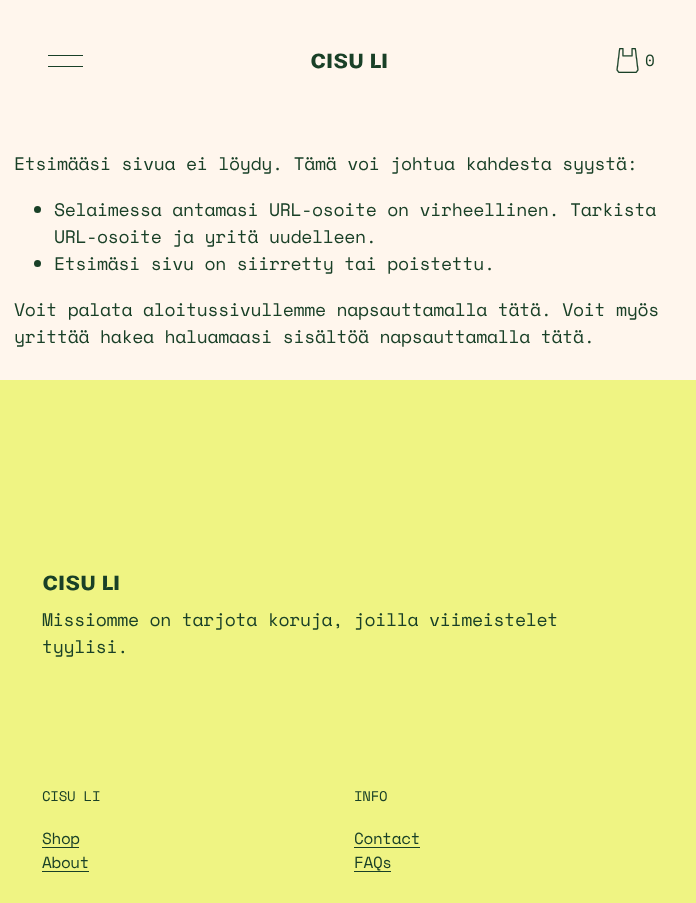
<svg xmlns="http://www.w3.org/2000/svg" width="696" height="903">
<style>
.a{font:600 21.5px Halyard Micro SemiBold;letter-spacing:-1px;fill:#194027}
.b{font:16px Space Mono;fill:#194027}
.c{font:18.15px Space Mono;letter-spacing:-0.35px;fill:#194027}
.d{font:14px Space Mono;letter-spacing:-0.25px;fill:#194027}
.e{font:16px Space Mono;letter-spacing:-0.35px;fill:#194027}
</style>
<rect width="100%" height="100%" fill="#fff6ed"/>
<path fill="#194027" d="M48 55h35v1H48z"/>
<path fill="#194027" d="M48 66h35v1H48z"/>
<image href="1.png" x="616" y="48" width="23" height="25"/>
<circle fill="#194027" cx="37.5" cy="209.5" r="3.5"/>
<circle fill="#194027" cx="37.5" cy="263.5" r="3.5"/>
<path fill="#eff483" d="M0 380h696v523H0z"/>
<path fill="#194027" d="M42 847h37v1H42z"/>
<path fill="#194027" d="M42 871h47v1H42z"/>
<path fill="#194027" d="M354 847h66v1H354z"/>
<path fill="#194027" d="M354 871h37v1H354z"/>
<text class="a" x="310" y="68">CISU LI</text>
<text class="b" x="645" y="66">0</text>
<text class="c" x="14" y="170">Etsimääsi sivua ei löydy. Tämä voi johtua kahdesta syystä:</text>
<text class="c" x="54" y="216">Selaimessa antamasi URL-osoite on virheellinen. Tarkista</text>
<text class="c" x="54" y="243">URL-osoite ja yritä uudelleen.</text>
<text class="c" x="54" y="270">Etsimäsi sivu on siirretty tai poistettu.</text>
<text class="c" x="14" y="316">Voit palata aloitussivullemme napsauttamalla tätä. Voit myös</text>
<text class="c" x="14" y="343">yrittää hakea haluamaasi sisältöä napsauttamalla tätä.</text>
<text class="a" x="42" y="590">CISU LI</text>
<text class="c" x="42" y="626">Missiomme on tarjota koruja, joilla viimeistelet</text>
<text class="c" x="42" y="653">tyylisi.</text>
<text class="d" x="42" y="801">CISU LI</text>
<text class="e" x="42" y="844">Shop</text>
<text class="e" x="42" y="868">About</text>
<text class="d" x="354" y="801">INFO</text>
<text class="e" x="354" y="844">Contact</text>
<text class="e" x="354" y="868">FAQs</text>
</svg>
